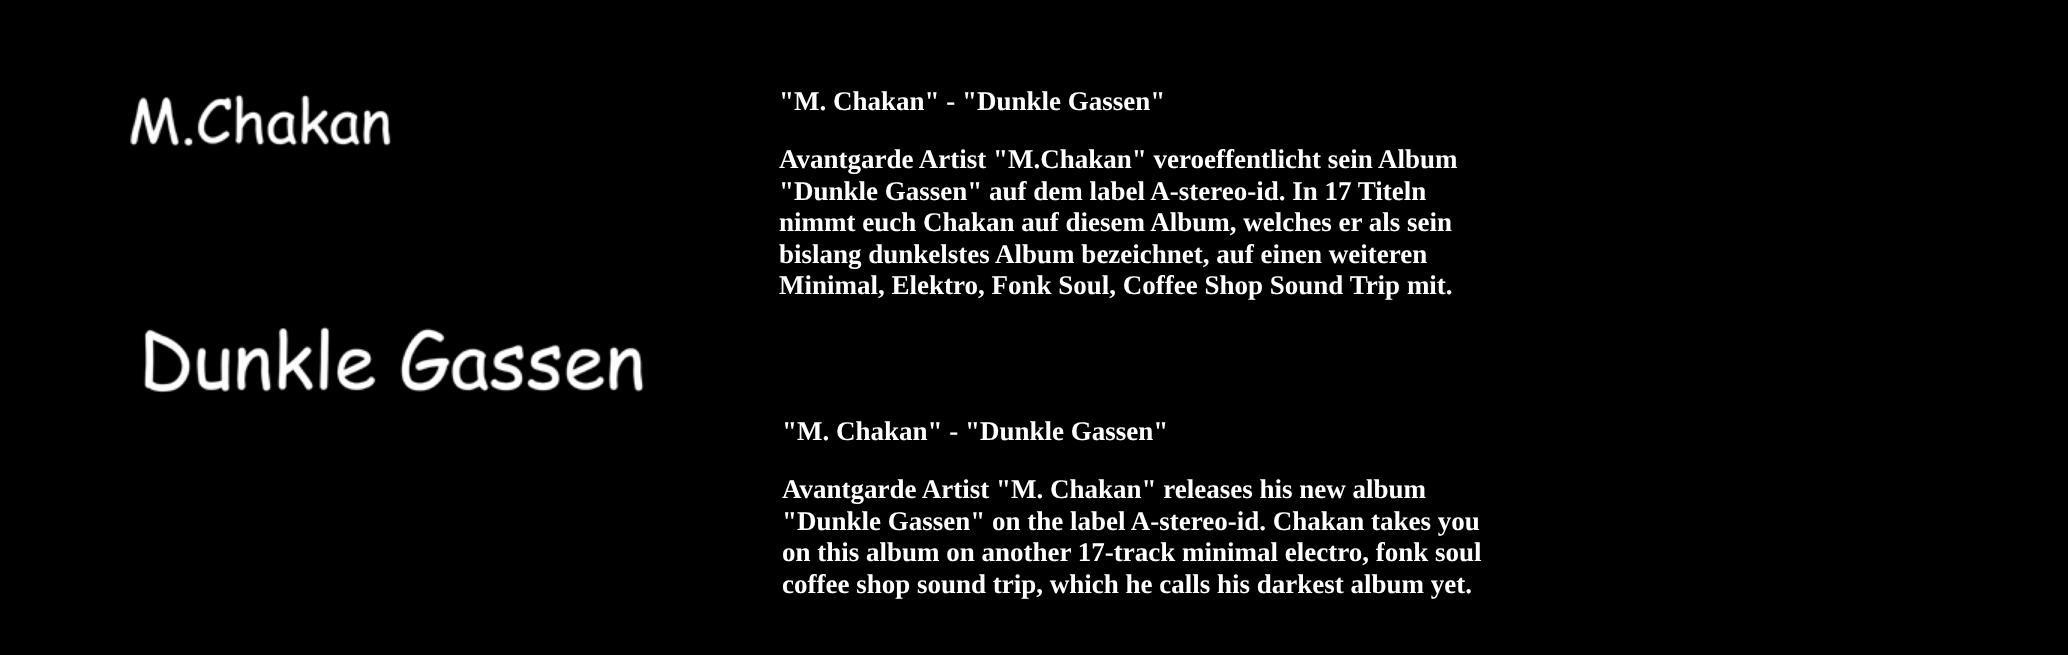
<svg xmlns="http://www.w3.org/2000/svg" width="2068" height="655">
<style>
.a{font:bold 27px Liberation Serif;fill:#fff}
</style>
<rect width="100%" height="100%" fill="#000"/>
<image href="1.png" x="130" y="94" width="514" height="299"/>
<text class="a" x="779" y="110">"M. Chakan" - "Dunkle Gassen"</text>
<text class="a" x="779" y="168">Avantgarde Artist "M.Chakan" veroeffentlicht sein Album</text>
<text class="a" x="779" y="200">"Dunkle Gassen" auf dem label A-stereo-id. In 17 Titeln</text>
<text class="a" x="779" y="231">nimmt euch Chakan auf diesem Album, welches er als sein</text>
<text class="a" x="779" y="263">bislang dunkelstes Album bezeichnet, auf einen weiteren</text>
<text class="a" x="779" y="294">Minimal, Elektro, Fonk Soul, Coffee Shop Sound Trip mit.</text>
<text class="a" x="782" y="440">"M. Chakan" - "Dunkle Gassen"</text>
<text class="a" x="782" y="498">Avantgarde Artist "M. Chakan" releases his new album</text>
<text class="a" x="782" y="530">"Dunkle Gassen" on the label A-stereo-id. Chakan takes you</text>
<text class="a" x="782" y="561">on this album on another 17-track minimal electro, fonk soul</text>
<text class="a" x="782" y="593">coffee shop sound trip, which he calls his darkest album yet.</text>
</svg>
